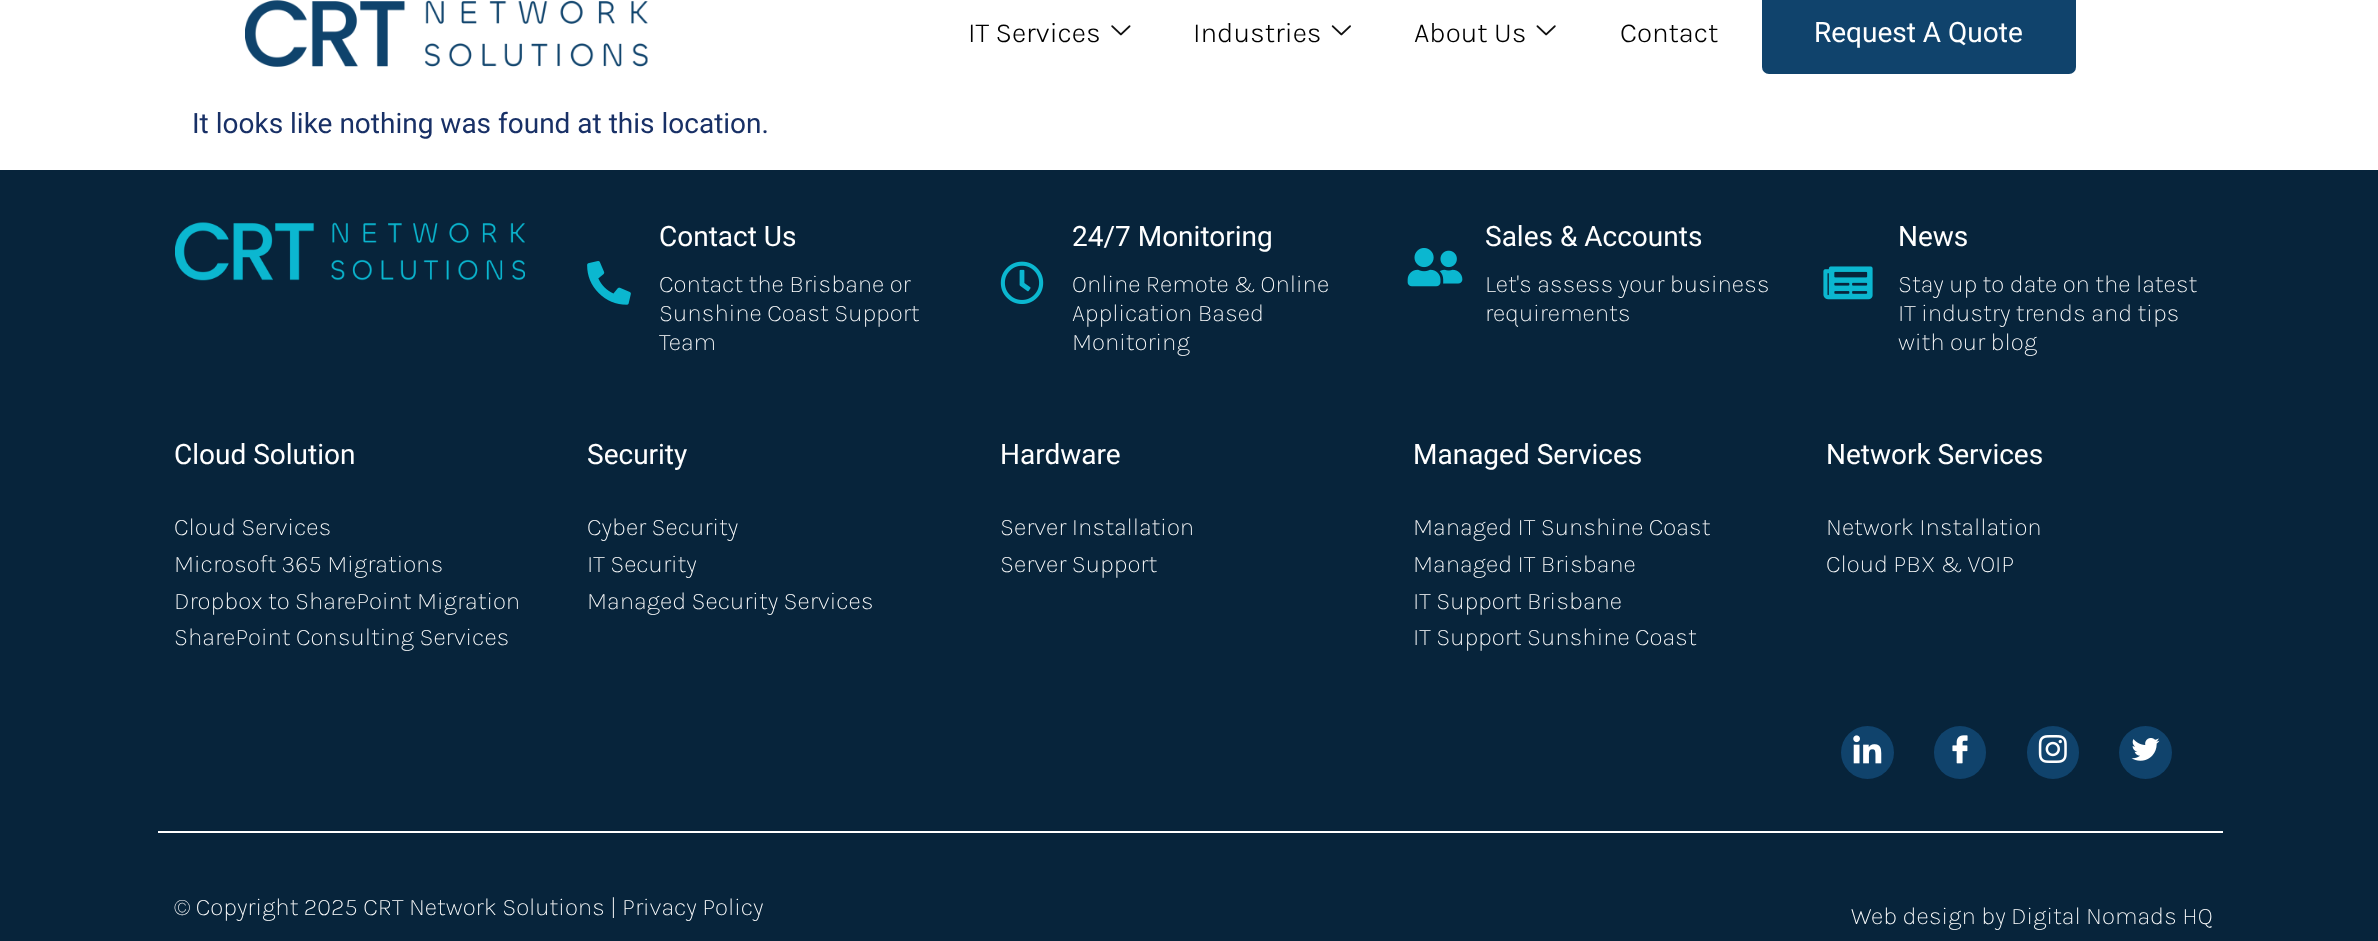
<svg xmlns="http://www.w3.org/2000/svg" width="2378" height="941">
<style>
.a{font:300 28px Karla;fill:#000}
.b{font:28px Roboto;fill:#fff}
.c{font:28px Roboto;fill:#183066}
.d{font:200 24.5px Karla;fill:#fff}
</style>
<rect width="100%" height="100%" fill="#fff"/>
<image href="1.png" x="245" y="0" width="403" height="67"/>
<image href="2.png" x="1111" y="25" width="20" height="11"/>
<image href="3.png" x="1331" y="25" width="20" height="11"/>
<image href="4.png" x="1536" y="25" width="20" height="11"/>
<rect fill="#10436c" x="1762" y="-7" width="314" height="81" rx="7"/>
<path fill="#07243b" d="M0 170h2378v771H0z"/>
<image href="5.png" x="175" y="222" width="350" height="59"/>
<image href="6.png" x="587" y="261" width="44" height="44"/>
<image href="7.png" x="1000" y="261" width="44" height="43"/>
<image href="8.png" x="1407" y="248" width="56" height="39"/>
<image href="9.png" x="1823" y="266" width="50" height="34"/>
<circle fill="#10436c" cx="1867.5" cy="752.5" r="26.5"/>
<image href="10.png" x="1853" y="735" width="29" height="29"/>
<rect fill="#10436c" x="1934" y="726" width="52" height="53" rx="26"/>
<image href="11.png" x="1952" y="735" width="16" height="29"/>
<rect fill="#10436c" x="2027" y="726" width="52" height="53" rx="26"/>
<image href="12.png" x="2038" y="735" width="29" height="28"/>
<circle fill="#10436c" cx="2145.5" cy="752.5" r="26.5"/>
<image href="13.png" x="2131" y="738" width="29" height="23"/>
<path fill="#fff" d="M158 831h2065v2H158z"/>
<text class="a" x="968" y="42">IT Services</text>
<text class="a" x="1193" y="42">Industries</text>
<text class="a" x="1414" y="42">About Us</text>
<text class="a" x="1620" y="42">Contact</text>
<text class="b" x="1814" y="42">Request A Quote</text>
<text class="c" x="192" y="133">It looks like nothing was found at this location.</text>
<text class="b" x="659" y="246">Contact Us</text>
<text class="d" x="659" y="292">Contact the Brisbane or</text>
<text class="d" x="659" y="321">Sunshine Coast Support</text>
<text class="d" x="659" y="350">Team</text>
<text class="b" x="1072" y="246">24/7 Monitoring</text>
<text class="d" x="1072" y="292">Online Remote &amp; Online</text>
<text class="d" x="1072" y="321">Application Based</text>
<text class="d" x="1072" y="350">Monitoring</text>
<text class="b" x="1485" y="246">Sales &amp; Accounts</text>
<text class="d" x="1485" y="292">Let's assess your business</text>
<text class="d" x="1485" y="321">requirements</text>
<text class="b" x="1898" y="246">News</text>
<text class="d" x="1898" y="292">Stay up to date on the latest</text>
<text class="d" x="1898" y="321">IT industry trends and tips</text>
<text class="d" x="1898" y="350">with our blog</text>
<text class="b" x="174" y="464">Cloud Solution</text>
<text class="d" x="174" y="535">Cloud Services</text>
<text class="d" x="174" y="572">Microsoft 365 Migrations</text>
<text class="d" x="174" y="609">Dropbox to SharePoint Migration</text>
<text class="d" x="174" y="645">SharePoint Consulting Services</text>
<text class="b" x="587" y="464">Security</text>
<text class="d" x="587" y="535">Cyber Security</text>
<text class="d" x="587" y="572">IT Security</text>
<text class="d" x="587" y="609">Managed Security Services</text>
<text class="b" x="1000" y="464">Hardware</text>
<text class="d" x="1000" y="535">Server Installation</text>
<text class="d" x="1000" y="572">Server Support</text>
<text class="b" x="1413" y="464">Managed Services</text>
<text class="d" x="1413" y="535">Managed IT Sunshine Coast</text>
<text class="d" x="1413" y="572">Managed IT Brisbane</text>
<text class="d" x="1413" y="609">IT Support Brisbane</text>
<text class="d" x="1413" y="645">IT Support Sunshine Coast</text>
<text class="b" x="1826" y="464">Network Services</text>
<text class="d" x="1826" y="535">Network Installation</text>
<text class="d" x="1826" y="572">Cloud PBX &amp; VOIP</text>
<text class="d" x="174" y="915">© Copyright 2025 CRT Network Solutions | Privacy Policy</text>
<text class="d" x="1851" y="924">Web design by Digital Nomads HQ</text>
</svg>
